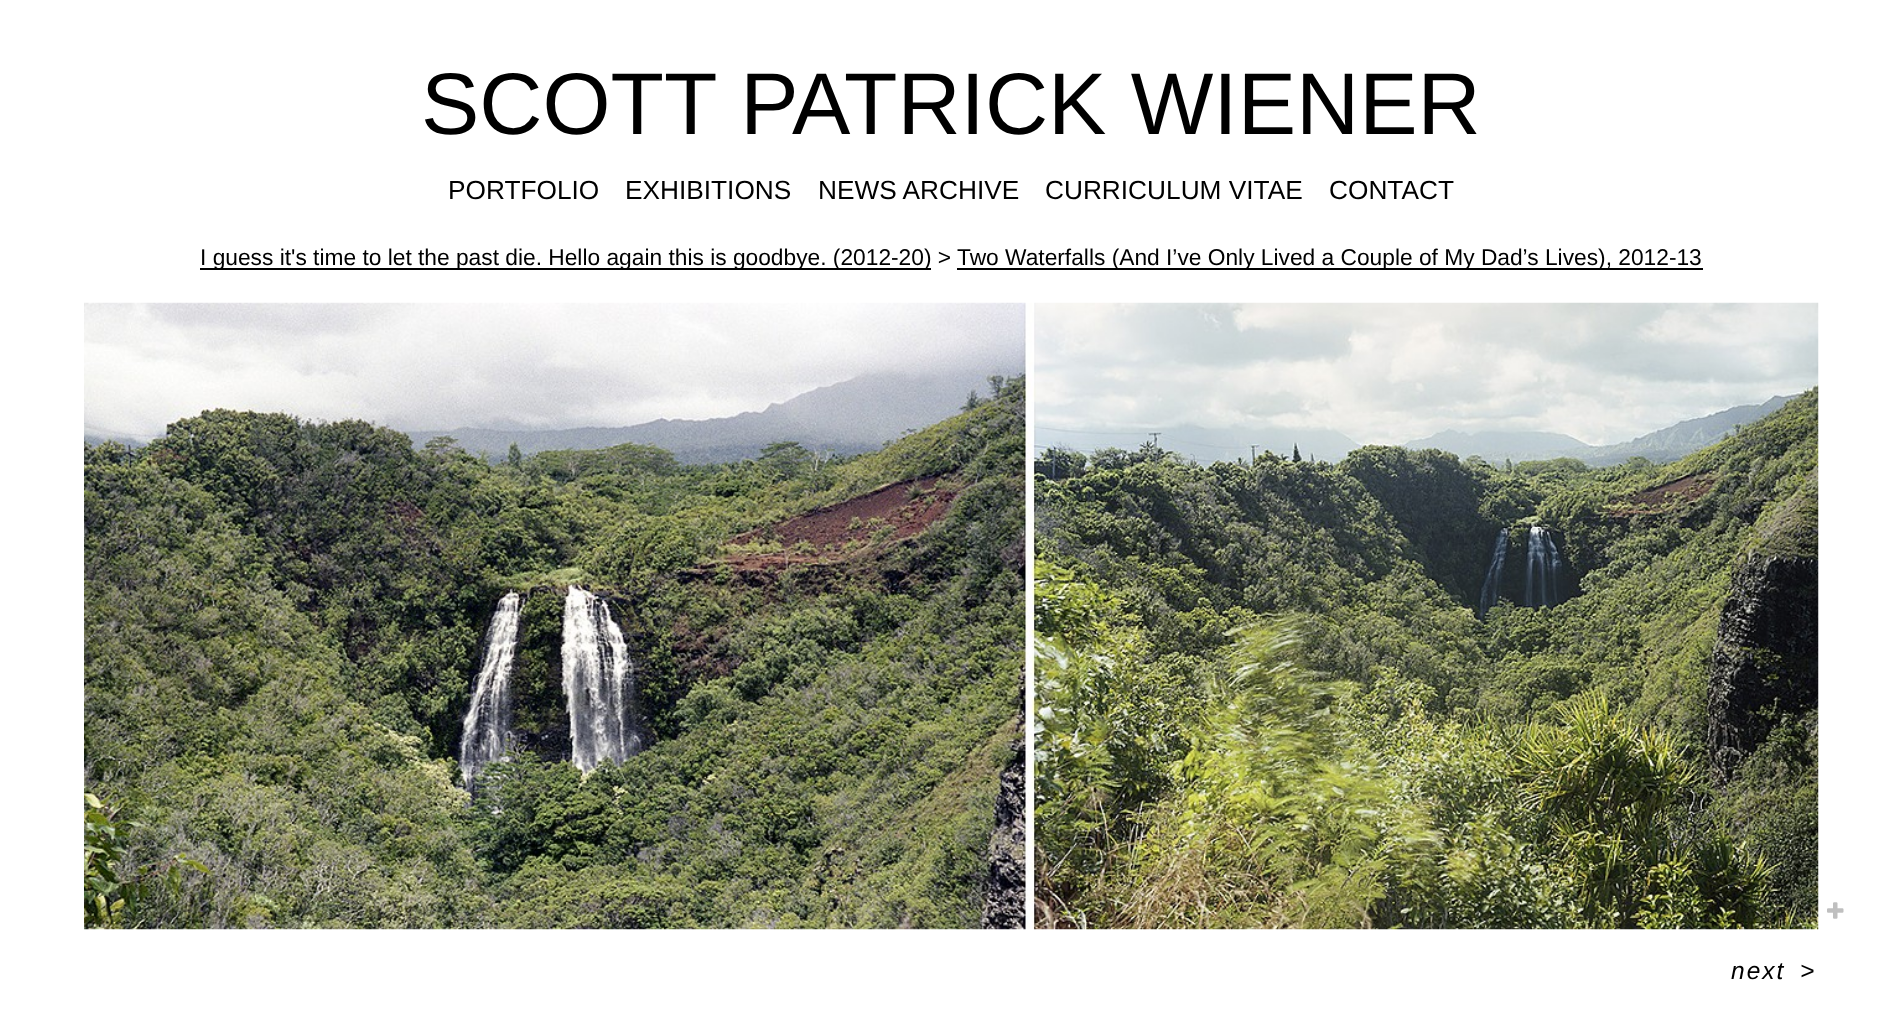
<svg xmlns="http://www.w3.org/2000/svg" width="1901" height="1017">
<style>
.a{font:87.5px Arimo;fill:#000}
.b{font:26.25px Arimo;fill:#000}
.c{font:22.75px Arimo;fill:#000}
.d{font:italic 24.5px Liberation Sans;letter-spacing:2px;fill:#000}
</style>
<rect width="100%" height="100%" fill="#fff"/>
<path fill="#000" d="M200 268h731v2H200z"/>
<path fill="#000" d="M957 268h746v2H957z"/>
<image href="1.png" x="84" y="302" width="1735" height="628"/>
<image href="2.png" x="1827" y="902" width="17" height="17"/>
<text class="a" x="421" y="134">SCOTT PATRICK WIENER</text>
<text class="b" x="448" y="199">PORTFOLIO</text>
<text class="b" x="625" y="199">EXHIBITIONS</text>
<text class="b" x="818" y="199">NEWS ARCHIVE</text>
<text class="b" x="1045" y="199">CURRICULUM VITAE</text>
<text class="b" x="1329" y="199">CONTACT</text>
<text class="c" x="200" y="265">I guess it's time to let the past die. Hello again this is goodbye. (2012-20) &gt;</text>
<text class="c" x="957" y="265">Two Waterfalls (And I’ve Only Lived a Couple of My Dad’s Lives), 2012-13</text>
<text class="d" x="1731" y="979">next</text>
<text class="d" x="1800" y="979">&gt;</text>
</svg>
